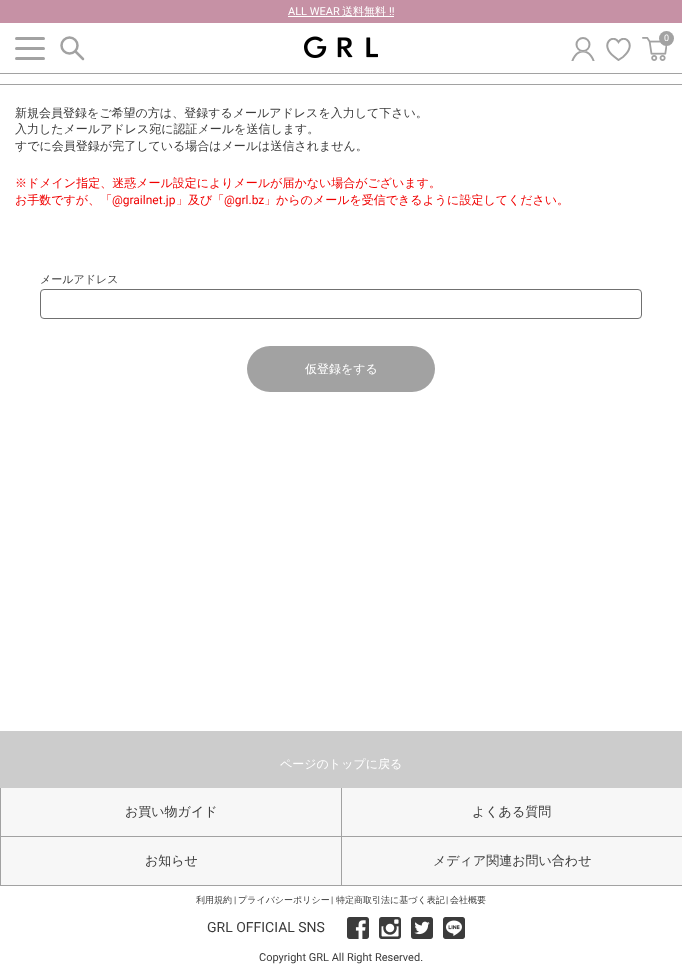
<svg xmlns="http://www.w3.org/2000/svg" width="682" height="971">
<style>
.a{font:11px Roboto;fill:#fff}
.b{font:500 11px WenQuanYi Zen Hei;fill:#fff}
.c{font:9px Roboto;fill:#fff}
.d{font:500 12px WenQuanYi Zen Hei;fill:#3b3b3b}
.e{font:500 12px WenQuanYi Zen Hei;fill:#f00000}
.f{font:12px Roboto;fill:#f00000}
.g{font:500 11px WenQuanYi Zen Hei;fill:#3b3b3b}
.h{font:500 12px WenQuanYi Zen Hei;fill:#fff}
.i{font:500 13px WenQuanYi Zen Hei;fill:#3b3b3b}
.j{font:500 9px WenQuanYi Zen Hei;fill:#3b3b3b}
.k{font:9px Roboto;fill:#3b3b3b}
.l{font:14px Roboto;fill:#3b3b3b}
.m{font:11px Roboto;fill:#3b3b3b}
</style>
<defs>
<clipPath id="clip1"><path d="M564 33h38v28h-38z"/></clipPath>
<clipPath id="clip2"><path d="M606 38h25v23H606z"/></clipPath>
</defs>
<rect width="100%" height="100%" fill="#fff"/>
<path fill="#a2a2a2" d="M0 73h682v1H0z"/>
<path fill="#c691a5" d="M0 0h682v23H0z"/>
<path fill="#fff" d="M288 16h106v1H288z"/>
<rect fill="#a2a2a2" x="15" y="37" width="30" height="3" rx="1.5"/>
<rect fill="#a2a2a2" x="15" y="47" width="30" height="3" rx="1.5"/>
<rect fill="#a2a2a2" x="15" y="57" width="30" height="3" rx="1.5"/>
<circle fill="none" stroke="#a2a2a2" stroke-width="2.5" cx="69.5" cy="45.5" r="8"/>
<path fill="none" stroke="#a2a2a2" stroke-width="2.5" stroke-linecap="round" d="M76 52l7 7"/>
<image href="1.png" x="304" y="36" width="74" height="22"/>
<g clip-path="url(#clip1)">
<ellipse fill="none" stroke="#a2a2a2" stroke-width="2" cx="583" cy="67" rx="11.5" ry="15.5"/>
</g>
<circle fill="#fff" cx="583" cy="44.5" r="7.5"/>
<circle fill="none" stroke="#a2a2a2" stroke-width="2" cx="583" cy="44.5" r="6.5"/>
<g clip-path="url(#clip2)">
<path fill="none" stroke="#a2a2a2" stroke-width="2" d="M618.5 60l4.5-3c15-12.5 1-24-4.5-15c-5.5-9-19.5 2.5-4.5 14.5z"/>
</g>
<image href="2.png" x="642" y="37" width="25" height="24"/>
<circle fill="#a2a2a2" cx="666.5" cy="38.5" r="7.5"/>
<path fill="#a2a2a2" d="M0 84h682v1H0z"/>
<rect fill="none" stroke="#707070" x="40.5" y="289.5" width="601" height="29" rx="3.5"/>
<rect fill="#a2a2a2" x="247" y="346" width="188" height="46" rx="23"/>
<path fill="#ccc" d="M0 731h682v57H0z"/>
<path fill="#a2a2a2" d="M0 836h682v1H0z"/>
<path fill="#a2a2a2" d="M0 788h1v49H0z"/>
<path fill="#f7f7f7" d="M1 788h340v48H1z"/>
<path fill="#a2a2a2" d="M341 788h1v49H341z"/>
<path fill="#f7f7f7" d="M342 788h340v48H342z"/>
<path fill="#a2a2a2" d="M0 885h682v1H0z"/>
<path fill="#a2a2a2" d="M0 837h1v49H0z"/>
<path fill="#f7f7f7" d="M1 837h340v48H1z"/>
<path fill="#a2a2a2" d="M341 837h1v49H341z"/>
<path fill="#f7f7f7" d="M342 837h340v48H342z"/>
<image href="3.png" x="347" y="917" width="22" height="22"/>
<image href="4.png" x="379" y="917" width="22" height="22"/>
<image href="5.png" x="411" y="917" width="22" height="22"/>
<image href="6.png" x="443" y="917" width="22" height="22"/>
<text class="a" x="288" y="15">ALL WEAR</text>
<text class="b" x="342" y="15">送料無料</text>
<text class="a" x="389" y="15">!!</text>
<text class="c" x="664" y="41">0</text>
<text class="d" x="15" y="117">新規会員登録をご希望の方は、登録するメールアドレスを入力して下さい。</text>
<text class="d" x="15" y="133">入力したメールアドレス宛に認証メールを送信します。</text>
<text class="d" x="15" y="150">すでに会員登録が完了している場合はメールは送信されません。</text>
<text class="e" x="15" y="187">※ドメイン指定、迷惑メール設定によりメールが届かない場合がございます。</text>
<text class="e" x="15" y="204">お手数ですが、「</text>
<text class="f" x="112" y="204">@grailnet.jp</text>
<text class="e" x="176" y="204">」及び「</text>
<text class="f" x="224" y="204">@grl.bz</text>
<text class="e" x="264" y="204">」からのメールを受信できるように設定してください。</text>
<text class="g" x="40" y="283">メールアドレス</text>
<text class="h" x="305" y="373">仮登録をする</text>
<text class="h" x="280" y="768">ページのトップに戻る</text>
<text class="i" x="125" y="816">お買い物ガイド</text>
<text class="i" x="472" y="816">よくある質問</text>
<text class="i" x="145" y="865">お知らせ</text>
<text class="i" x="433" y="865">メディア関連お問い合わせ</text>
<text class="j" x="196" y="903">利用規約</text>
<text class="k" x="234" y="903">|</text>
<text class="j" x="238" y="903">プライバシーポリシー</text>
<text class="k" x="331" y="903">|</text>
<text class="j" x="336" y="903">特定商取引法に基づく表記</text>
<text class="k" x="446" y="903">|</text>
<text class="j" x="450" y="903">会社概要</text>
<text class="l" x="207" y="932">GRL OFFICIAL SNS</text>
<text class="m" x="259" y="961">Copyright GRL All Right Reserved.</text>
</svg>
